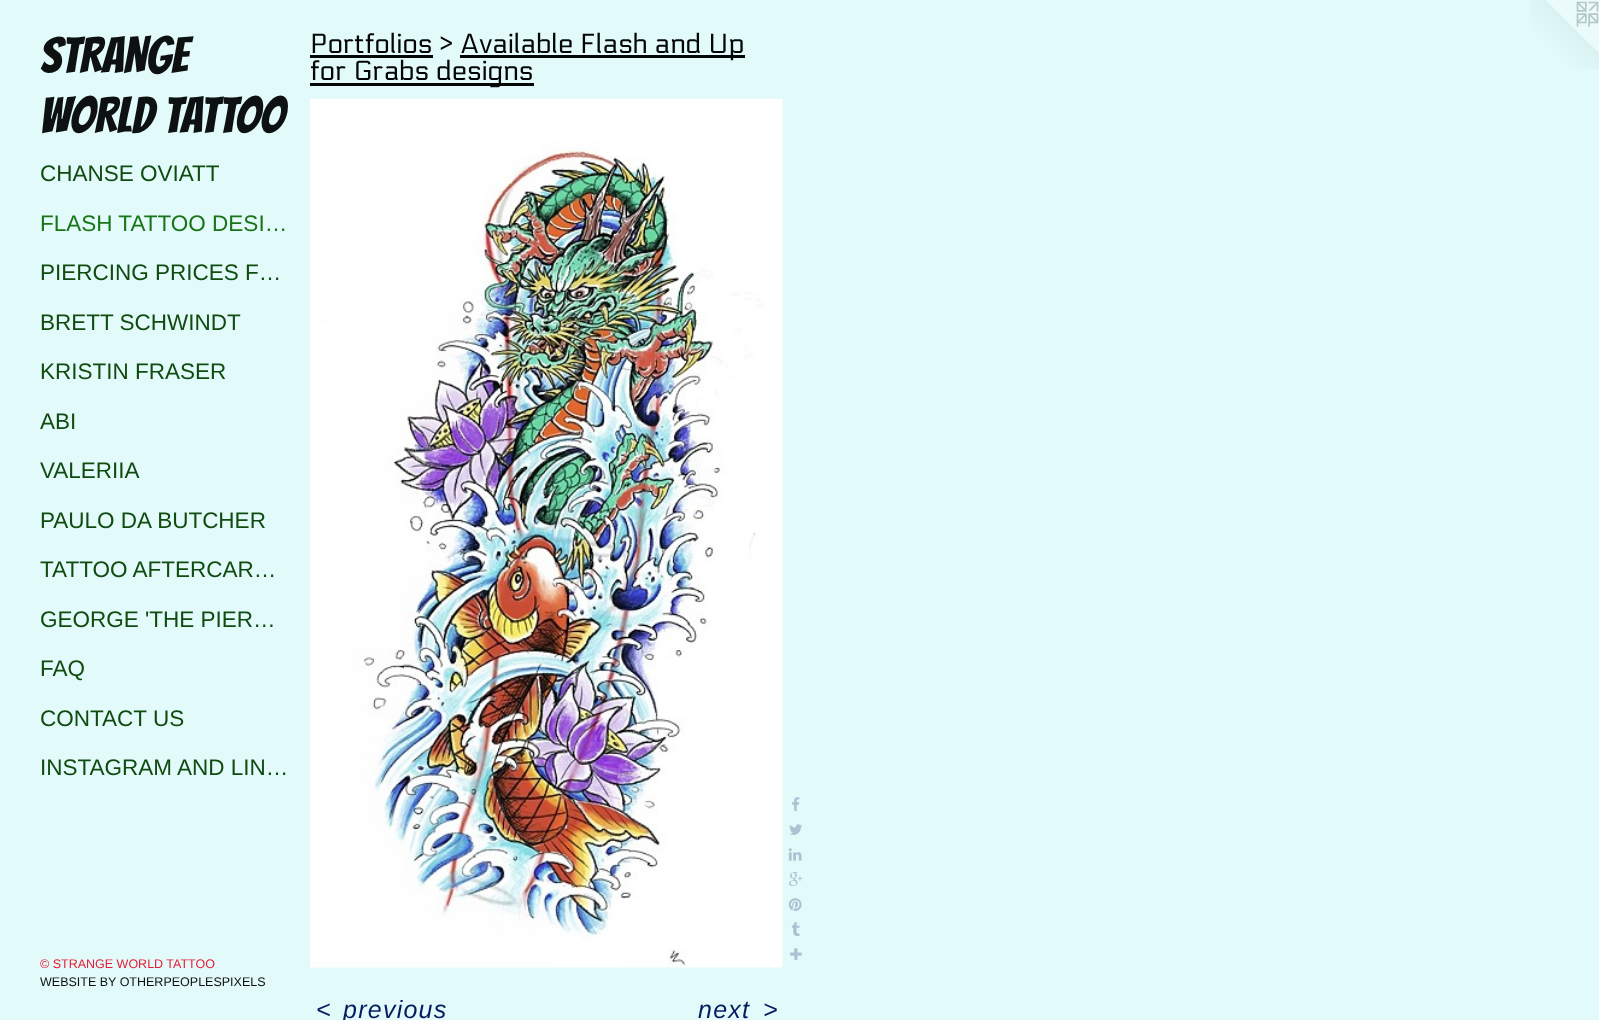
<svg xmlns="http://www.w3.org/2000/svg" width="1599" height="1020">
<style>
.a{font:50px Bangers;fill:#0e1111}
.b{font:22.5px Liberation Sans;fill:#104b10}
.c{font:22.5px Liberation Sans;fill:#197519}
.d{font:12.5px Liberation Sans;fill:#e71b34}
.e{font:12.5px Liberation Sans;fill:#0e1111}
.f{font:27.5px Electrolize;fill:#040505}
.g{font:italic 25px Liberation Sans;letter-spacing:1.25px;fill:#041d60}
</style>
<rect width="100%" height="100%" fill="#e3fafa"/>
<path fill="#040505" d="M310 55h123v3H310z"/>
<path fill="#040505" d="M460 55h285v3H460z"/>
<path fill="#040505" d="M310 83h224v3H310z"/>
<image href="1.png" x="310" y="98" width="473" height="870"/>
<image href="2.png" x="792" y="797" width="8" height="14"/>
<image href="3.png" x="789" y="824" width="13" height="11"/>
<image href="4.png" x="788" y="848" width="14" height="13"/>
<image href="5.png" x="789" y="872" width="14" height="14"/>
<image href="6.png" x="788" y="898" width="14" height="13"/>
<image href="7.png" x="791" y="922" width="9" height="14"/>
<image href="8.png" x="790" y="948" width="12" height="12"/>
<image href="9.png" x="1530" y="0" width="69" height="69"/>
<text class="a" x="40" y="73">STRANGE</text>
<text class="a" x="40" y="133">WORLD TATTOO</text>
<text class="b" x="40" y="181">CHANSE OVIATT</text>
<text class="c" x="40" y="231">FLASH TATTOO DESI…</text>
<text class="b" x="40" y="280">PIERCING PRICES F…</text>
<text class="b" x="40" y="330">BRETT SCHWINDT</text>
<text class="b" x="40" y="379">KRISTIN FRASER</text>
<text class="b" x="40" y="429">ABI</text>
<text class="b" x="40" y="478">VALERIIA</text>
<text class="b" x="40" y="528">PAULO DA BUTCHER</text>
<text class="b" x="40" y="577">TATTOO AFTERCAR…</text>
<text class="b" x="40" y="627">GEORGE 'THE PIER…</text>
<text class="b" x="40" y="676">FAQ</text>
<text class="b" x="40" y="726">CONTACT US</text>
<text class="b" x="40" y="775">INSTAGRAM AND LIN…</text>
<text class="d" x="40" y="968">© STRANGE WORLD TATTOO</text>
<text class="e" x="40" y="986">WEBSITE BY OTHERPEOPLESPIXELS</text>
<text class="f" x="310" y="53">Portfolios &gt;</text>
<text class="f" x="460" y="53">Available Flash and Up</text>
<text class="f" x="310" y="80">for Grabs designs</text>
<text class="g" x="316" y="1018">&lt;</text>
<text class="g" x="343" y="1018">previous</text>
<text class="g" x="698" y="1018">next</text>
<text class="g" x="763" y="1018">&gt;</text>
</svg>
